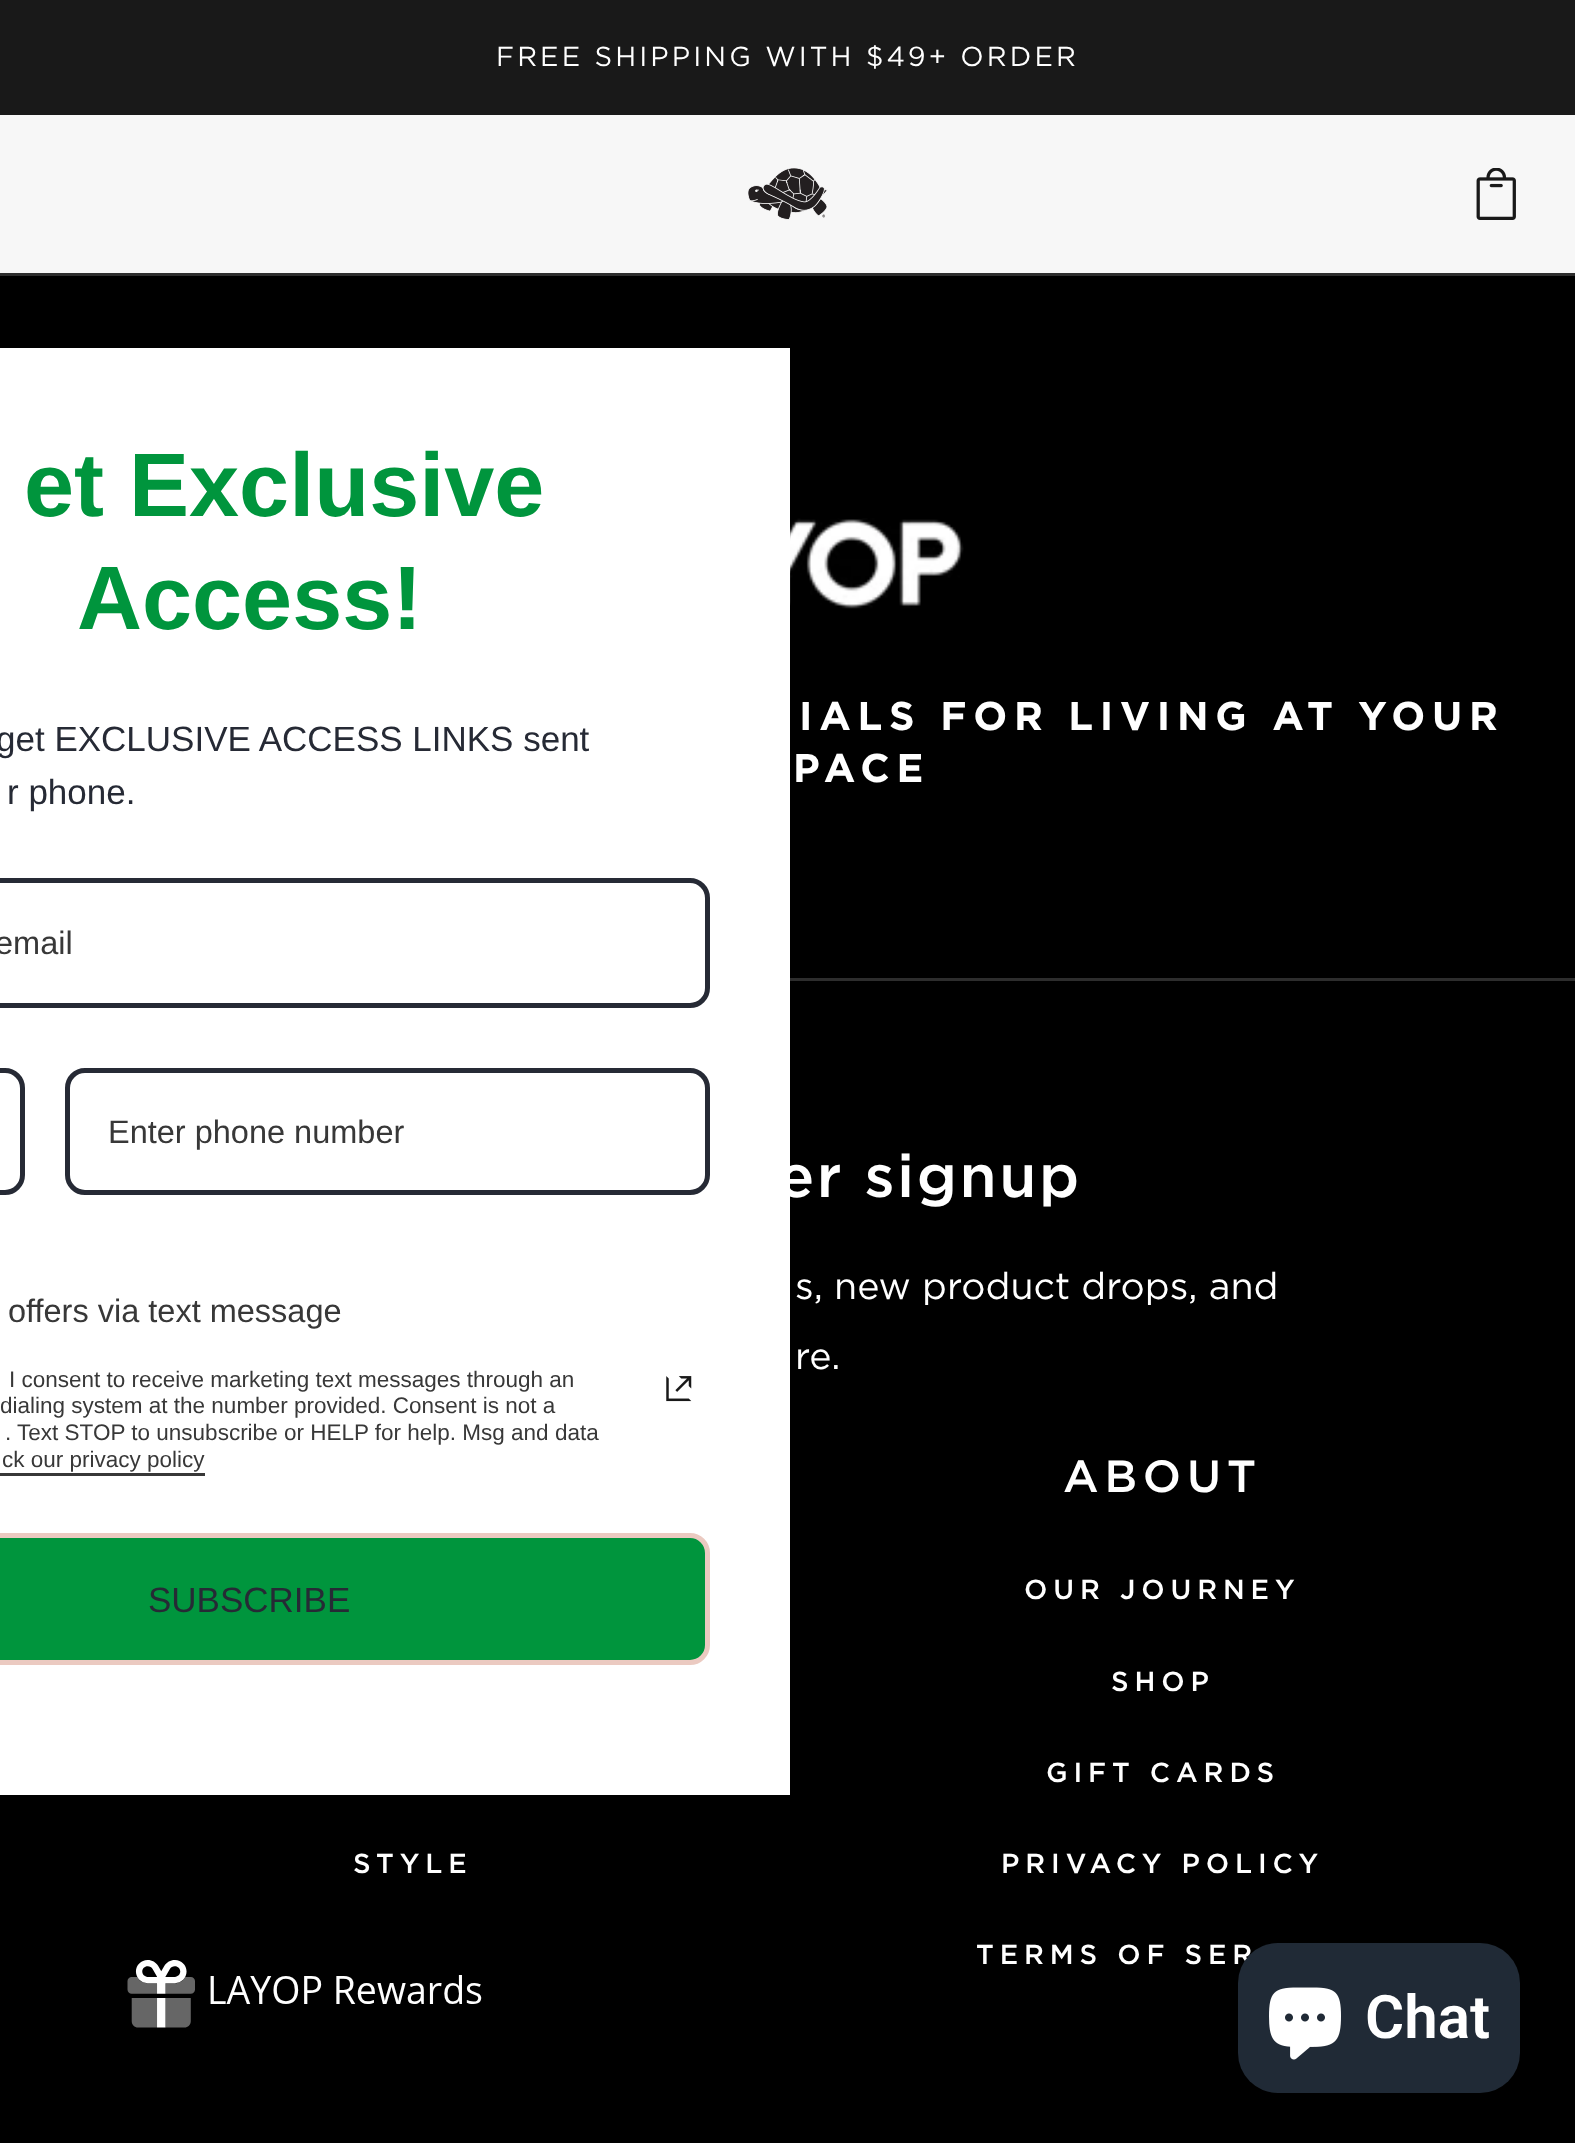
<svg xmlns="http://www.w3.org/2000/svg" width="1575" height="2143">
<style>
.a{font:27.5px Gotham;letter-spacing:3.1px;fill:#fff}
.b{font:bold 90px Liberation Sans;fill:#00953d}
.c{font:35px Liberation Sans;fill:#262a35}
.d{font:32.5px Liberation Sans;fill:#383838}
.e{font:22.5px Liberation Sans;fill:#383838}
.f{font:bold 40px Gotham;letter-spacing:6.75px;fill:#fff}
.g{font:500 60px Gotham;letter-spacing:2.5px;fill:#fff}
.h{font:37.5px Gotham;fill:#fff}
.i{font:500 27.5px Gotham;letter-spacing:5.9px;fill:#fff}
.j{font:500 45px Gotham;letter-spacing:5.9px;fill:#fff}
.k{font:600 60px Roboto;fill:#fff}
</style>
<rect width="100%" height="100%" fill="#f7f7f7"/>
<path fill="#191919" d="M0 0h1575v115H0z"/>
<image href="1.png" x="748" y="168" width="80" height="52"/>
<image href="2.png" x="1476" y="168" width="40" height="52"/>
<path fill="#000" d="M0 276h1575v1867H0z"/>
<path fill="#fff" d="M0 348h790v1447H0z"/>
<rect fill="none" stroke="#262a35" stroke-width="5" x="-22.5" y="880.5" width="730" height="125" rx="17.5"/>
<rect fill="none" stroke="#262a35" stroke-width="5" x="-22.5" y="1070.5" width="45" height="122" rx="17.5"/>
<rect fill="none" stroke="#262a35" stroke-width="5" x="67.5" y="1070.5" width="640" height="122" rx="17.5"/>
<path fill="#383838" d="M0 1473h205v3H0z"/>
<image href="3.png" x="666" y="1376" width="26" height="26"/>
<rect fill="#00953d" stroke="#ebcac1" stroke-width="5" x="-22.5" y="1535.5" width="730" height="127" rx="17.5"/>
<path fill="#2d2d2d" d="M0 273h1575v3H0z"/>
<image href="4.png" x="790" y="518" width="174" height="91"/>
<path fill="#2d2d2d" d="M790 978h785v3H790z"/>
<image href="5.png" x="127" y="1960" width="355" height="68"/>
<rect fill="#00000026" filter="blur(6px)" x="1238" y="1943" width="282" height="150" rx="40"/>
<text class="a" x="496" y="66">FREE SHIPPING WITH $49+ ORDER</text>
<text class="b" x="24" y="516">et Exclusive</text>
<text class="b" x="77" y="629">Access!</text>
<text class="c" x="-4" y="751">get EXCLUSIVE ACCESS LINKS sent</text>
<text class="c" x="7" y="804">r phone.</text>
<text class="d" x="-5" y="954">email</text>
<text class="d" x="108" y="1143">Enter phone number</text>
<text class="d" x="8" y="1322">offers via text message</text>
<text class="e" x="9" y="1387">I consent to receive marketing text messages through an</text>
<text class="e" x="0" y="1413">dialing system at the number provided. Consent is not a</text>
<text class="e" x="5" y="1440">. Text STOP to unsubscribe or HELP for help. Msg and data</text>
<text class="e" x="2" y="1467">ck our privacy policy</text>
<text class="c" x="148" y="1612">SUBSCRIBE</text>
<text class="f" x="799" y="730">IALS FOR LIVING AT YOUR</text>
<text class="f" x="793" y="782">PACE</text>
<text class="g" x="778" y="1197">er signup</text>
<text class="h" x="795" y="1299">s, new product drops, and</text>
<text class="h" x="795" y="1369">re.</text>
<text class="i" x="353" y="1873">STYLE</text>
<text class="j" x="1063" y="1492">ABOUT</text>
<text class="i" x="1024" y="1599">OUR JOURNEY</text>
<text class="i" x="1111" y="1691">SHOP</text>
<text class="i" x="1046" y="1782">GIFT CARDS</text>
<text class="i" x="1001" y="1873">PRIVACY POLICY</text>
<text class="i" x="976" y="1964">TERMS OF SER</text>
<rect fill="#202a36" x="1238" y="1943" width="282" height="150" rx="40"/>
<image href="6.png" x="1269" y="1987" width="72" height="73"/>
<text class="k" x="1365" y="2038">Chat</text>
</svg>
